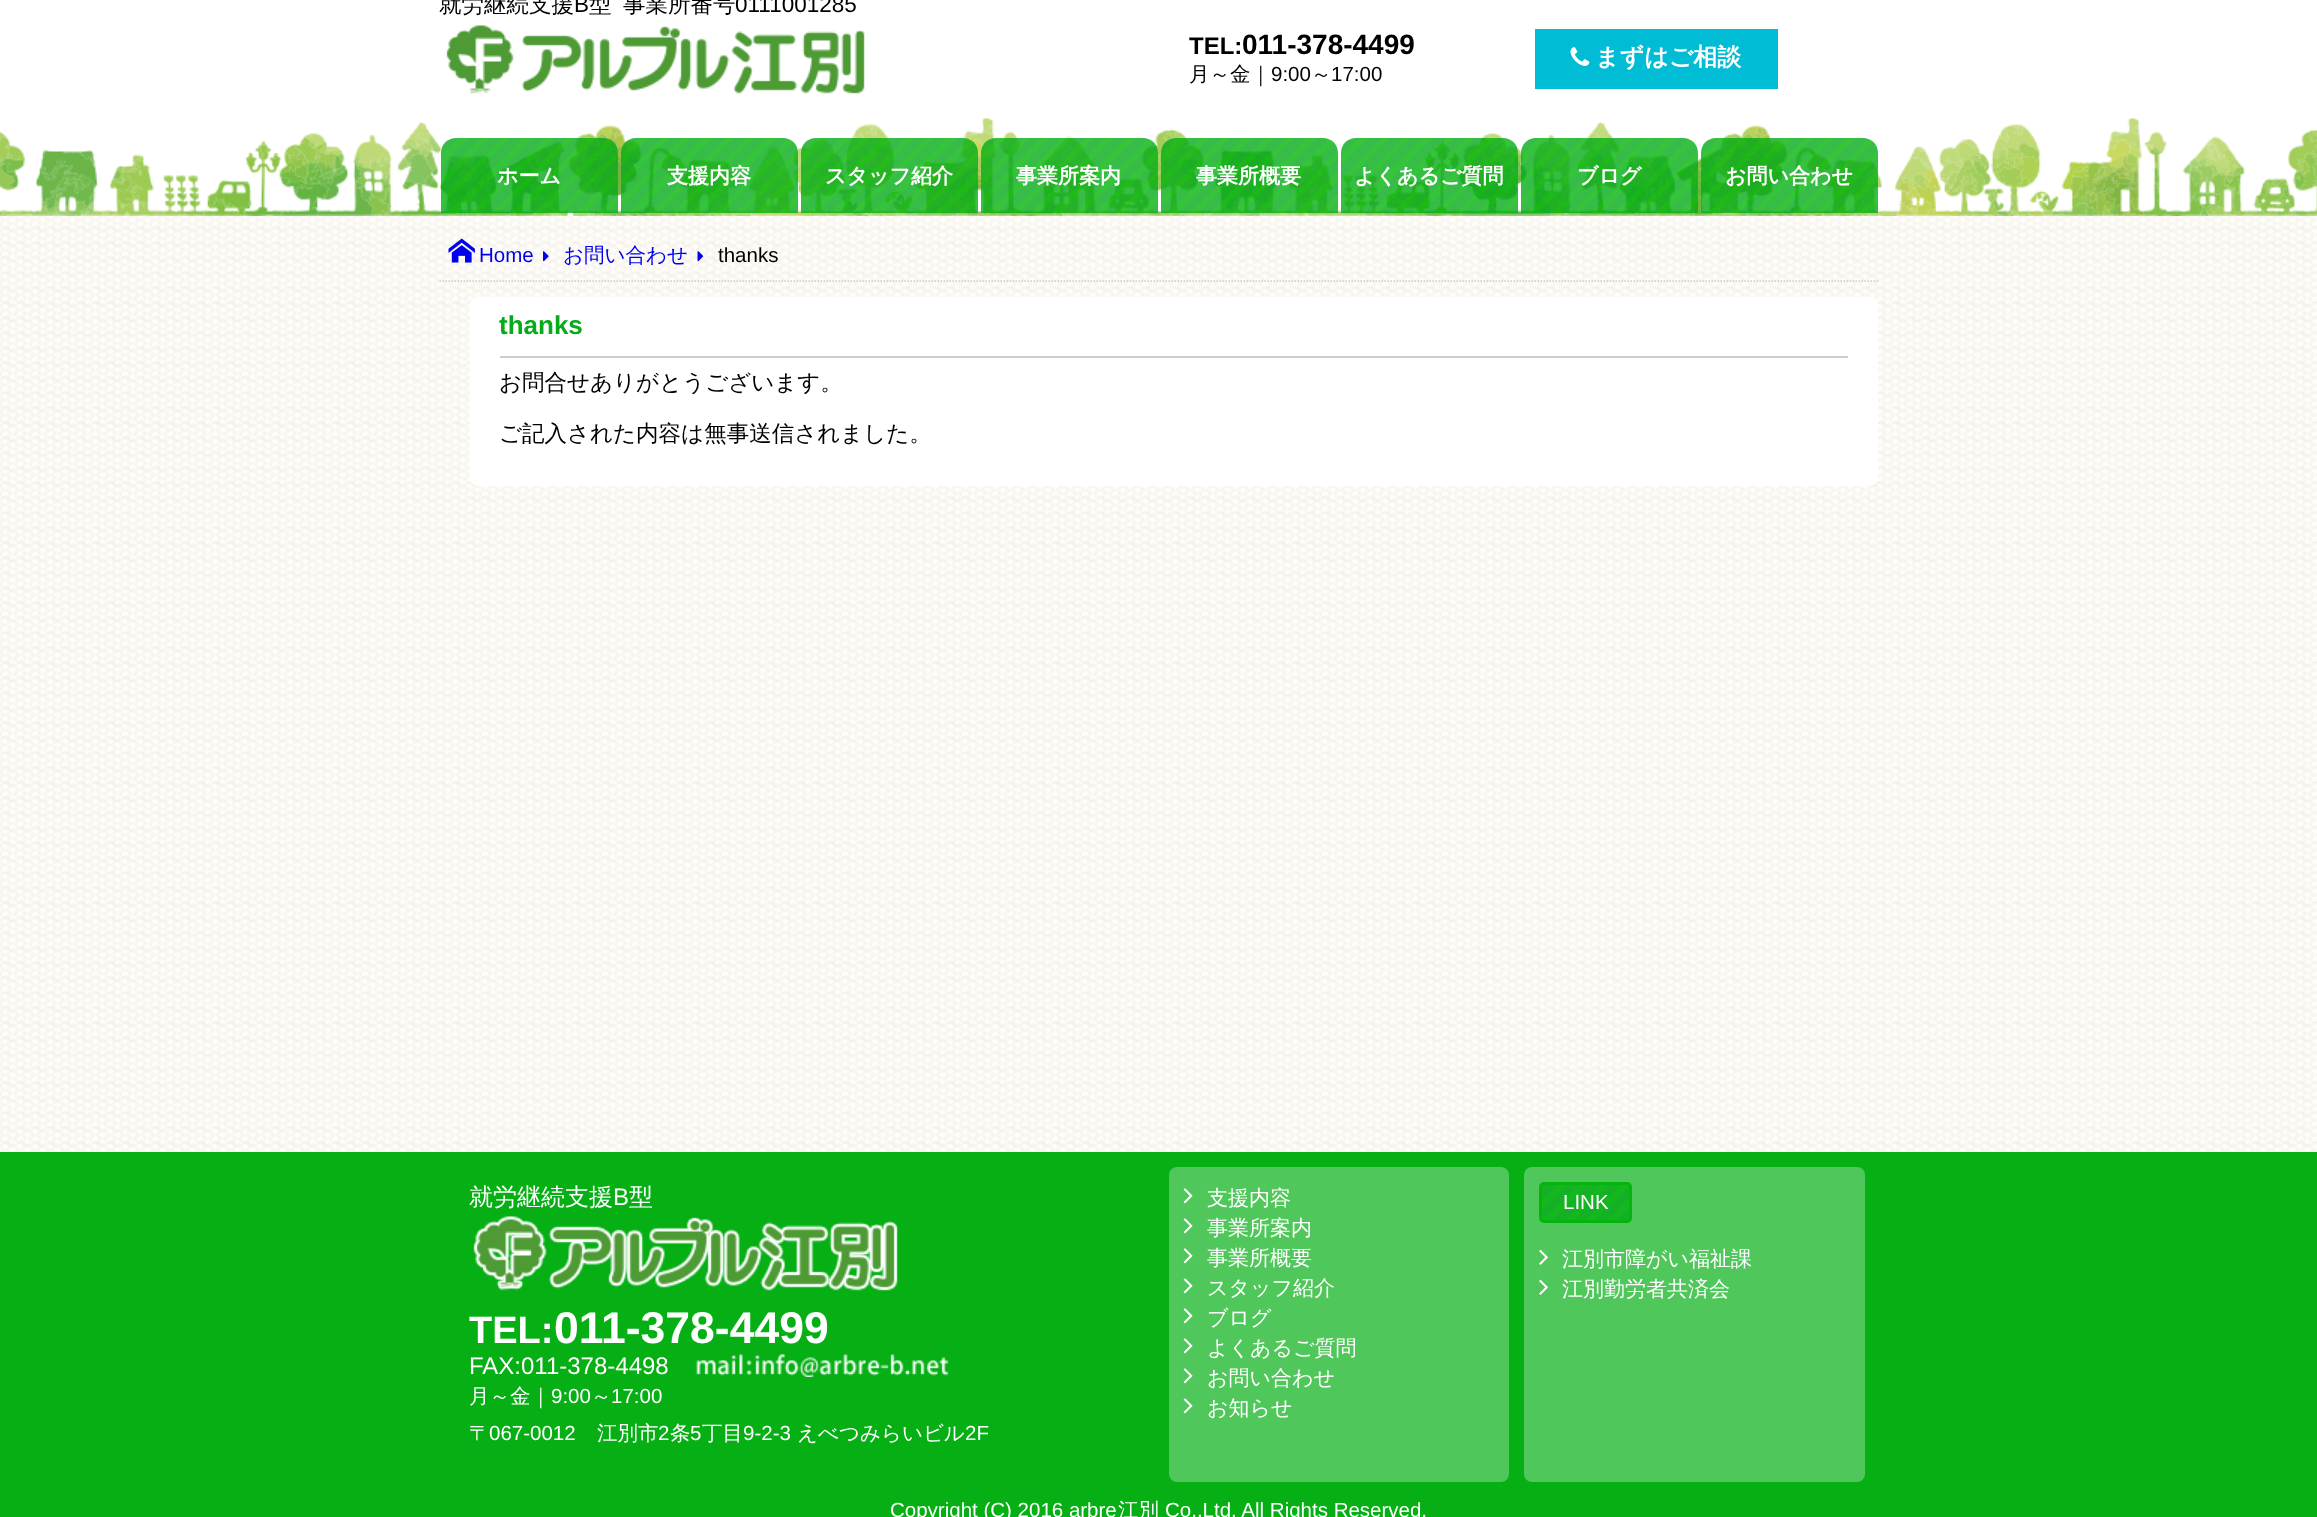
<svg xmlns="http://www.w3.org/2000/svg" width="2317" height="1517">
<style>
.a{font:500 22.5px WenQuanYi Zen Hei;fill:#000}
.b{font:22.5px Liberation Sans;fill:#000}
.c{font:bold 24px Liberation Sans;fill:#000}
.d{font:bold 28px Liberation Sans;fill:#000}
.e{font:500 20.5px WenQuanYi Zen Hei;fill:#000}
.f{font:20.5px Liberation Sans;fill:#000}
.g{font:bold 24px WenQuanYi Zen Hei;fill:#fff}
.h{font:bold 21px WenQuanYi Zen Hei;fill:#fff}
.i{font:20.5px Liberation Sans;fill:#00e}
.j{font:500 20.5px WenQuanYi Zen Hei;fill:#00e}
.k{font:bold 26px Liberation Sans;fill:#05ab19}
.l{font:500 24px WenQuanYi Zen Hei;fill:#fff}
.m{font:24px Liberation Sans;fill:#fff}
.n{font:bold 38px Liberation Sans;fill:#fff}
.o{font:bold 44.5px Liberation Sans;fill:#fff}
.p{font:500 20.5px WenQuanYi Zen Hei;fill:#fff}
.q{font:20.5px Liberation Sans;fill:#fff}
.r{font:500 21px WenQuanYi Zen Hei;fill:#fff}
</style>
<defs>
<linearGradient id="g1" gradientUnits="userSpaceOnUse" x1="593" y1="239" x2="465" y2="111"><stop offset="0" stop-color="#05ab19" stop-opacity="0.8"/><stop offset="0.05" stop-color="#05ab19" stop-opacity="0.8"/><stop offset="0.05" stop-color="#04b50c" stop-opacity="0.8"/><stop offset="0.08" stop-color="#04b50c" stop-opacity="0.8"/><stop offset="0.08" stop-color="#05ab19" stop-opacity="0.8"/><stop offset="0.13" stop-color="#05ab19" stop-opacity="0.8"/><stop offset="0.13" stop-color="#04b50c" stop-opacity="0.8"/><stop offset="0.17" stop-color="#04b50c" stop-opacity="0.8"/><stop offset="0.17" stop-color="#05ab19" stop-opacity="0.8"/><stop offset="0.22" stop-color="#05ab19" stop-opacity="0.8"/><stop offset="0.22" stop-color="#04b50c" stop-opacity="0.8"/><stop offset="0.25" stop-color="#04b50c" stop-opacity="0.8"/><stop offset="0.25" stop-color="#05ab19" stop-opacity="0.8"/><stop offset="0.3" stop-color="#05ab19" stop-opacity="0.8"/><stop offset="0.3" stop-color="#04b50c" stop-opacity="0.8"/><stop offset="0.33" stop-color="#04b50c" stop-opacity="0.8"/><stop offset="0.33" stop-color="#05ab19" stop-opacity="0.8"/><stop offset="0.38" stop-color="#05ab19" stop-opacity="0.8"/><stop offset="0.38" stop-color="#04b50c" stop-opacity="0.8"/><stop offset="0.42" stop-color="#04b50c" stop-opacity="0.8"/><stop offset="0.42" stop-color="#05ab19" stop-opacity="0.8"/><stop offset="0.47" stop-color="#05ab19" stop-opacity="0.8"/><stop offset="0.47" stop-color="#04b50c" stop-opacity="0.8"/><stop offset="0.5" stop-color="#04b50c" stop-opacity="0.8"/><stop offset="0.5" stop-color="#05ab19" stop-opacity="0.8"/><stop offset="0.55" stop-color="#05ab19" stop-opacity="0.8"/><stop offset="0.55" stop-color="#04b50c" stop-opacity="0.8"/><stop offset="0.58" stop-color="#04b50c" stop-opacity="0.8"/><stop offset="0.58" stop-color="#05ab19" stop-opacity="0.8"/><stop offset="0.63" stop-color="#05ab19" stop-opacity="0.8"/><stop offset="0.63" stop-color="#04b50c" stop-opacity="0.8"/><stop offset="0.67" stop-color="#04b50c" stop-opacity="0.8"/><stop offset="0.67" stop-color="#05ab19" stop-opacity="0.8"/><stop offset="0.72" stop-color="#05ab19" stop-opacity="0.8"/><stop offset="0.72" stop-color="#04b50c" stop-opacity="0.8"/><stop offset="0.75" stop-color="#04b50c" stop-opacity="0.8"/><stop offset="0.75" stop-color="#05ab19" stop-opacity="0.8"/><stop offset="0.8" stop-color="#05ab19" stop-opacity="0.8"/><stop offset="0.8" stop-color="#04b50c" stop-opacity="0.8"/><stop offset="0.83" stop-color="#04b50c" stop-opacity="0.8"/><stop offset="0.83" stop-color="#05ab19" stop-opacity="0.8"/><stop offset="0.88" stop-color="#05ab19" stop-opacity="0.8"/><stop offset="0.88" stop-color="#04b50c" stop-opacity="0.8"/><stop offset="0.92" stop-color="#04b50c" stop-opacity="0.8"/><stop offset="0.92" stop-color="#05ab19" stop-opacity="0.8"/><stop offset="0.97" stop-color="#05ab19" stop-opacity="0.8"/><stop offset="0.97" stop-color="#04b50c" stop-opacity="0.8"/><stop offset="1" stop-color="#04b50c" stop-opacity="0.8"/></linearGradient>
<linearGradient id="g2" gradientUnits="userSpaceOnUse" x1="773" y1="239" x2="645" y2="111"><stop offset="0" stop-color="#05ab19" stop-opacity="0.8"/><stop offset="0.05" stop-color="#05ab19" stop-opacity="0.8"/><stop offset="0.05" stop-color="#04b50c" stop-opacity="0.8"/><stop offset="0.08" stop-color="#04b50c" stop-opacity="0.8"/><stop offset="0.08" stop-color="#05ab19" stop-opacity="0.8"/><stop offset="0.13" stop-color="#05ab19" stop-opacity="0.8"/><stop offset="0.13" stop-color="#04b50c" stop-opacity="0.8"/><stop offset="0.17" stop-color="#04b50c" stop-opacity="0.8"/><stop offset="0.17" stop-color="#05ab19" stop-opacity="0.8"/><stop offset="0.22" stop-color="#05ab19" stop-opacity="0.8"/><stop offset="0.22" stop-color="#04b50c" stop-opacity="0.8"/><stop offset="0.25" stop-color="#04b50c" stop-opacity="0.8"/><stop offset="0.25" stop-color="#05ab19" stop-opacity="0.8"/><stop offset="0.3" stop-color="#05ab19" stop-opacity="0.8"/><stop offset="0.3" stop-color="#04b50c" stop-opacity="0.8"/><stop offset="0.33" stop-color="#04b50c" stop-opacity="0.8"/><stop offset="0.33" stop-color="#05ab19" stop-opacity="0.8"/><stop offset="0.38" stop-color="#05ab19" stop-opacity="0.8"/><stop offset="0.38" stop-color="#04b50c" stop-opacity="0.8"/><stop offset="0.42" stop-color="#04b50c" stop-opacity="0.8"/><stop offset="0.42" stop-color="#05ab19" stop-opacity="0.8"/><stop offset="0.47" stop-color="#05ab19" stop-opacity="0.8"/><stop offset="0.47" stop-color="#04b50c" stop-opacity="0.8"/><stop offset="0.5" stop-color="#04b50c" stop-opacity="0.8"/><stop offset="0.5" stop-color="#05ab19" stop-opacity="0.8"/><stop offset="0.55" stop-color="#05ab19" stop-opacity="0.8"/><stop offset="0.55" stop-color="#04b50c" stop-opacity="0.8"/><stop offset="0.58" stop-color="#04b50c" stop-opacity="0.8"/><stop offset="0.58" stop-color="#05ab19" stop-opacity="0.8"/><stop offset="0.63" stop-color="#05ab19" stop-opacity="0.8"/><stop offset="0.63" stop-color="#04b50c" stop-opacity="0.8"/><stop offset="0.67" stop-color="#04b50c" stop-opacity="0.8"/><stop offset="0.67" stop-color="#05ab19" stop-opacity="0.8"/><stop offset="0.72" stop-color="#05ab19" stop-opacity="0.8"/><stop offset="0.72" stop-color="#04b50c" stop-opacity="0.8"/><stop offset="0.75" stop-color="#04b50c" stop-opacity="0.8"/><stop offset="0.75" stop-color="#05ab19" stop-opacity="0.8"/><stop offset="0.8" stop-color="#05ab19" stop-opacity="0.8"/><stop offset="0.8" stop-color="#04b50c" stop-opacity="0.8"/><stop offset="0.83" stop-color="#04b50c" stop-opacity="0.8"/><stop offset="0.83" stop-color="#05ab19" stop-opacity="0.8"/><stop offset="0.88" stop-color="#05ab19" stop-opacity="0.8"/><stop offset="0.88" stop-color="#04b50c" stop-opacity="0.8"/><stop offset="0.92" stop-color="#04b50c" stop-opacity="0.8"/><stop offset="0.92" stop-color="#05ab19" stop-opacity="0.8"/><stop offset="0.97" stop-color="#05ab19" stop-opacity="0.8"/><stop offset="0.97" stop-color="#04b50c" stop-opacity="0.8"/><stop offset="1" stop-color="#04b50c" stop-opacity="0.8"/></linearGradient>
<linearGradient id="g3" gradientUnits="userSpaceOnUse" x1="953" y1="239" x2="825" y2="111"><stop offset="0" stop-color="#05ab19" stop-opacity="0.8"/><stop offset="0.05" stop-color="#05ab19" stop-opacity="0.8"/><stop offset="0.05" stop-color="#04b50c" stop-opacity="0.8"/><stop offset="0.08" stop-color="#04b50c" stop-opacity="0.8"/><stop offset="0.08" stop-color="#05ab19" stop-opacity="0.8"/><stop offset="0.13" stop-color="#05ab19" stop-opacity="0.8"/><stop offset="0.13" stop-color="#04b50c" stop-opacity="0.8"/><stop offset="0.17" stop-color="#04b50c" stop-opacity="0.8"/><stop offset="0.17" stop-color="#05ab19" stop-opacity="0.8"/><stop offset="0.22" stop-color="#05ab19" stop-opacity="0.8"/><stop offset="0.22" stop-color="#04b50c" stop-opacity="0.8"/><stop offset="0.25" stop-color="#04b50c" stop-opacity="0.8"/><stop offset="0.25" stop-color="#05ab19" stop-opacity="0.8"/><stop offset="0.3" stop-color="#05ab19" stop-opacity="0.8"/><stop offset="0.3" stop-color="#04b50c" stop-opacity="0.8"/><stop offset="0.33" stop-color="#04b50c" stop-opacity="0.8"/><stop offset="0.33" stop-color="#05ab19" stop-opacity="0.8"/><stop offset="0.38" stop-color="#05ab19" stop-opacity="0.8"/><stop offset="0.38" stop-color="#04b50c" stop-opacity="0.8"/><stop offset="0.42" stop-color="#04b50c" stop-opacity="0.8"/><stop offset="0.42" stop-color="#05ab19" stop-opacity="0.8"/><stop offset="0.47" stop-color="#05ab19" stop-opacity="0.8"/><stop offset="0.47" stop-color="#04b50c" stop-opacity="0.8"/><stop offset="0.5" stop-color="#04b50c" stop-opacity="0.8"/><stop offset="0.5" stop-color="#05ab19" stop-opacity="0.8"/><stop offset="0.55" stop-color="#05ab19" stop-opacity="0.8"/><stop offset="0.55" stop-color="#04b50c" stop-opacity="0.8"/><stop offset="0.58" stop-color="#04b50c" stop-opacity="0.8"/><stop offset="0.58" stop-color="#05ab19" stop-opacity="0.8"/><stop offset="0.63" stop-color="#05ab19" stop-opacity="0.8"/><stop offset="0.63" stop-color="#04b50c" stop-opacity="0.8"/><stop offset="0.67" stop-color="#04b50c" stop-opacity="0.8"/><stop offset="0.67" stop-color="#05ab19" stop-opacity="0.8"/><stop offset="0.72" stop-color="#05ab19" stop-opacity="0.8"/><stop offset="0.72" stop-color="#04b50c" stop-opacity="0.8"/><stop offset="0.75" stop-color="#04b50c" stop-opacity="0.8"/><stop offset="0.75" stop-color="#05ab19" stop-opacity="0.8"/><stop offset="0.8" stop-color="#05ab19" stop-opacity="0.8"/><stop offset="0.8" stop-color="#04b50c" stop-opacity="0.8"/><stop offset="0.83" stop-color="#04b50c" stop-opacity="0.8"/><stop offset="0.83" stop-color="#05ab19" stop-opacity="0.8"/><stop offset="0.88" stop-color="#05ab19" stop-opacity="0.8"/><stop offset="0.88" stop-color="#04b50c" stop-opacity="0.8"/><stop offset="0.92" stop-color="#04b50c" stop-opacity="0.8"/><stop offset="0.92" stop-color="#05ab19" stop-opacity="0.8"/><stop offset="0.97" stop-color="#05ab19" stop-opacity="0.8"/><stop offset="0.97" stop-color="#04b50c" stop-opacity="0.8"/><stop offset="1" stop-color="#04b50c" stop-opacity="0.8"/></linearGradient>
<linearGradient id="g4" gradientUnits="userSpaceOnUse" x1="1133" y1="239" x2="1005" y2="111"><stop offset="0" stop-color="#05ab19" stop-opacity="0.8"/><stop offset="0.05" stop-color="#05ab19" stop-opacity="0.8"/><stop offset="0.05" stop-color="#04b50c" stop-opacity="0.8"/><stop offset="0.08" stop-color="#04b50c" stop-opacity="0.8"/><stop offset="0.08" stop-color="#05ab19" stop-opacity="0.8"/><stop offset="0.13" stop-color="#05ab19" stop-opacity="0.8"/><stop offset="0.13" stop-color="#04b50c" stop-opacity="0.8"/><stop offset="0.17" stop-color="#04b50c" stop-opacity="0.8"/><stop offset="0.17" stop-color="#05ab19" stop-opacity="0.8"/><stop offset="0.22" stop-color="#05ab19" stop-opacity="0.8"/><stop offset="0.22" stop-color="#04b50c" stop-opacity="0.8"/><stop offset="0.25" stop-color="#04b50c" stop-opacity="0.8"/><stop offset="0.25" stop-color="#05ab19" stop-opacity="0.8"/><stop offset="0.3" stop-color="#05ab19" stop-opacity="0.8"/><stop offset="0.3" stop-color="#04b50c" stop-opacity="0.8"/><stop offset="0.33" stop-color="#04b50c" stop-opacity="0.8"/><stop offset="0.33" stop-color="#05ab19" stop-opacity="0.8"/><stop offset="0.38" stop-color="#05ab19" stop-opacity="0.8"/><stop offset="0.38" stop-color="#04b50c" stop-opacity="0.8"/><stop offset="0.42" stop-color="#04b50c" stop-opacity="0.8"/><stop offset="0.42" stop-color="#05ab19" stop-opacity="0.8"/><stop offset="0.47" stop-color="#05ab19" stop-opacity="0.8"/><stop offset="0.47" stop-color="#04b50c" stop-opacity="0.8"/><stop offset="0.5" stop-color="#04b50c" stop-opacity="0.8"/><stop offset="0.5" stop-color="#05ab19" stop-opacity="0.8"/><stop offset="0.55" stop-color="#05ab19" stop-opacity="0.8"/><stop offset="0.55" stop-color="#04b50c" stop-opacity="0.8"/><stop offset="0.58" stop-color="#04b50c" stop-opacity="0.8"/><stop offset="0.58" stop-color="#05ab19" stop-opacity="0.8"/><stop offset="0.63" stop-color="#05ab19" stop-opacity="0.8"/><stop offset="0.63" stop-color="#04b50c" stop-opacity="0.8"/><stop offset="0.67" stop-color="#04b50c" stop-opacity="0.8"/><stop offset="0.67" stop-color="#05ab19" stop-opacity="0.8"/><stop offset="0.72" stop-color="#05ab19" stop-opacity="0.8"/><stop offset="0.72" stop-color="#04b50c" stop-opacity="0.8"/><stop offset="0.75" stop-color="#04b50c" stop-opacity="0.8"/><stop offset="0.75" stop-color="#05ab19" stop-opacity="0.8"/><stop offset="0.8" stop-color="#05ab19" stop-opacity="0.8"/><stop offset="0.8" stop-color="#04b50c" stop-opacity="0.8"/><stop offset="0.83" stop-color="#04b50c" stop-opacity="0.8"/><stop offset="0.83" stop-color="#05ab19" stop-opacity="0.8"/><stop offset="0.88" stop-color="#05ab19" stop-opacity="0.8"/><stop offset="0.88" stop-color="#04b50c" stop-opacity="0.8"/><stop offset="0.92" stop-color="#04b50c" stop-opacity="0.8"/><stop offset="0.92" stop-color="#05ab19" stop-opacity="0.8"/><stop offset="0.97" stop-color="#05ab19" stop-opacity="0.8"/><stop offset="0.97" stop-color="#04b50c" stop-opacity="0.8"/><stop offset="1" stop-color="#04b50c" stop-opacity="0.8"/></linearGradient>
<linearGradient id="g5" gradientUnits="userSpaceOnUse" x1="1313" y1="239" x2="1185" y2="111"><stop offset="0" stop-color="#05ab19" stop-opacity="0.8"/><stop offset="0.05" stop-color="#05ab19" stop-opacity="0.8"/><stop offset="0.05" stop-color="#04b50c" stop-opacity="0.8"/><stop offset="0.08" stop-color="#04b50c" stop-opacity="0.8"/><stop offset="0.08" stop-color="#05ab19" stop-opacity="0.8"/><stop offset="0.13" stop-color="#05ab19" stop-opacity="0.8"/><stop offset="0.13" stop-color="#04b50c" stop-opacity="0.8"/><stop offset="0.17" stop-color="#04b50c" stop-opacity="0.8"/><stop offset="0.17" stop-color="#05ab19" stop-opacity="0.8"/><stop offset="0.22" stop-color="#05ab19" stop-opacity="0.8"/><stop offset="0.22" stop-color="#04b50c" stop-opacity="0.8"/><stop offset="0.25" stop-color="#04b50c" stop-opacity="0.8"/><stop offset="0.25" stop-color="#05ab19" stop-opacity="0.8"/><stop offset="0.3" stop-color="#05ab19" stop-opacity="0.8"/><stop offset="0.3" stop-color="#04b50c" stop-opacity="0.8"/><stop offset="0.33" stop-color="#04b50c" stop-opacity="0.8"/><stop offset="0.33" stop-color="#05ab19" stop-opacity="0.8"/><stop offset="0.38" stop-color="#05ab19" stop-opacity="0.8"/><stop offset="0.38" stop-color="#04b50c" stop-opacity="0.8"/><stop offset="0.42" stop-color="#04b50c" stop-opacity="0.8"/><stop offset="0.42" stop-color="#05ab19" stop-opacity="0.8"/><stop offset="0.47" stop-color="#05ab19" stop-opacity="0.8"/><stop offset="0.47" stop-color="#04b50c" stop-opacity="0.8"/><stop offset="0.5" stop-color="#04b50c" stop-opacity="0.8"/><stop offset="0.5" stop-color="#05ab19" stop-opacity="0.8"/><stop offset="0.55" stop-color="#05ab19" stop-opacity="0.8"/><stop offset="0.55" stop-color="#04b50c" stop-opacity="0.8"/><stop offset="0.58" stop-color="#04b50c" stop-opacity="0.8"/><stop offset="0.58" stop-color="#05ab19" stop-opacity="0.8"/><stop offset="0.63" stop-color="#05ab19" stop-opacity="0.8"/><stop offset="0.63" stop-color="#04b50c" stop-opacity="0.8"/><stop offset="0.67" stop-color="#04b50c" stop-opacity="0.8"/><stop offset="0.67" stop-color="#05ab19" stop-opacity="0.8"/><stop offset="0.72" stop-color="#05ab19" stop-opacity="0.8"/><stop offset="0.72" stop-color="#04b50c" stop-opacity="0.8"/><stop offset="0.75" stop-color="#04b50c" stop-opacity="0.8"/><stop offset="0.75" stop-color="#05ab19" stop-opacity="0.8"/><stop offset="0.8" stop-color="#05ab19" stop-opacity="0.8"/><stop offset="0.8" stop-color="#04b50c" stop-opacity="0.8"/><stop offset="0.83" stop-color="#04b50c" stop-opacity="0.8"/><stop offset="0.83" stop-color="#05ab19" stop-opacity="0.8"/><stop offset="0.88" stop-color="#05ab19" stop-opacity="0.8"/><stop offset="0.88" stop-color="#04b50c" stop-opacity="0.8"/><stop offset="0.92" stop-color="#04b50c" stop-opacity="0.8"/><stop offset="0.92" stop-color="#05ab19" stop-opacity="0.8"/><stop offset="0.97" stop-color="#05ab19" stop-opacity="0.8"/><stop offset="0.97" stop-color="#04b50c" stop-opacity="0.8"/><stop offset="1" stop-color="#04b50c" stop-opacity="0.8"/></linearGradient>
<linearGradient id="g6" gradientUnits="userSpaceOnUse" x1="1493" y1="239" x2="1365" y2="111"><stop offset="0" stop-color="#05ab19" stop-opacity="0.8"/><stop offset="0.05" stop-color="#05ab19" stop-opacity="0.8"/><stop offset="0.05" stop-color="#04b50c" stop-opacity="0.8"/><stop offset="0.08" stop-color="#04b50c" stop-opacity="0.8"/><stop offset="0.08" stop-color="#05ab19" stop-opacity="0.8"/><stop offset="0.13" stop-color="#05ab19" stop-opacity="0.8"/><stop offset="0.13" stop-color="#04b50c" stop-opacity="0.8"/><stop offset="0.17" stop-color="#04b50c" stop-opacity="0.8"/><stop offset="0.17" stop-color="#05ab19" stop-opacity="0.8"/><stop offset="0.22" stop-color="#05ab19" stop-opacity="0.8"/><stop offset="0.22" stop-color="#04b50c" stop-opacity="0.8"/><stop offset="0.25" stop-color="#04b50c" stop-opacity="0.8"/><stop offset="0.25" stop-color="#05ab19" stop-opacity="0.8"/><stop offset="0.3" stop-color="#05ab19" stop-opacity="0.8"/><stop offset="0.3" stop-color="#04b50c" stop-opacity="0.8"/><stop offset="0.33" stop-color="#04b50c" stop-opacity="0.8"/><stop offset="0.33" stop-color="#05ab19" stop-opacity="0.8"/><stop offset="0.38" stop-color="#05ab19" stop-opacity="0.8"/><stop offset="0.38" stop-color="#04b50c" stop-opacity="0.8"/><stop offset="0.42" stop-color="#04b50c" stop-opacity="0.8"/><stop offset="0.42" stop-color="#05ab19" stop-opacity="0.8"/><stop offset="0.47" stop-color="#05ab19" stop-opacity="0.8"/><stop offset="0.47" stop-color="#04b50c" stop-opacity="0.8"/><stop offset="0.5" stop-color="#04b50c" stop-opacity="0.8"/><stop offset="0.5" stop-color="#05ab19" stop-opacity="0.8"/><stop offset="0.55" stop-color="#05ab19" stop-opacity="0.8"/><stop offset="0.55" stop-color="#04b50c" stop-opacity="0.8"/><stop offset="0.58" stop-color="#04b50c" stop-opacity="0.8"/><stop offset="0.58" stop-color="#05ab19" stop-opacity="0.8"/><stop offset="0.63" stop-color="#05ab19" stop-opacity="0.8"/><stop offset="0.63" stop-color="#04b50c" stop-opacity="0.8"/><stop offset="0.67" stop-color="#04b50c" stop-opacity="0.8"/><stop offset="0.67" stop-color="#05ab19" stop-opacity="0.8"/><stop offset="0.72" stop-color="#05ab19" stop-opacity="0.8"/><stop offset="0.72" stop-color="#04b50c" stop-opacity="0.8"/><stop offset="0.75" stop-color="#04b50c" stop-opacity="0.8"/><stop offset="0.75" stop-color="#05ab19" stop-opacity="0.8"/><stop offset="0.8" stop-color="#05ab19" stop-opacity="0.8"/><stop offset="0.8" stop-color="#04b50c" stop-opacity="0.8"/><stop offset="0.83" stop-color="#04b50c" stop-opacity="0.8"/><stop offset="0.83" stop-color="#05ab19" stop-opacity="0.8"/><stop offset="0.88" stop-color="#05ab19" stop-opacity="0.8"/><stop offset="0.88" stop-color="#04b50c" stop-opacity="0.8"/><stop offset="0.92" stop-color="#04b50c" stop-opacity="0.8"/><stop offset="0.92" stop-color="#05ab19" stop-opacity="0.8"/><stop offset="0.97" stop-color="#05ab19" stop-opacity="0.8"/><stop offset="0.97" stop-color="#04b50c" stop-opacity="0.8"/><stop offset="1" stop-color="#04b50c" stop-opacity="0.8"/></linearGradient>
<linearGradient id="g7" gradientUnits="userSpaceOnUse" x1="1673" y1="239" x2="1545" y2="111"><stop offset="0" stop-color="#05ab19" stop-opacity="0.8"/><stop offset="0.05" stop-color="#05ab19" stop-opacity="0.8"/><stop offset="0.05" stop-color="#04b50c" stop-opacity="0.8"/><stop offset="0.08" stop-color="#04b50c" stop-opacity="0.8"/><stop offset="0.08" stop-color="#05ab19" stop-opacity="0.8"/><stop offset="0.13" stop-color="#05ab19" stop-opacity="0.8"/><stop offset="0.13" stop-color="#04b50c" stop-opacity="0.8"/><stop offset="0.17" stop-color="#04b50c" stop-opacity="0.8"/><stop offset="0.17" stop-color="#05ab19" stop-opacity="0.8"/><stop offset="0.22" stop-color="#05ab19" stop-opacity="0.8"/><stop offset="0.22" stop-color="#04b50c" stop-opacity="0.8"/><stop offset="0.25" stop-color="#04b50c" stop-opacity="0.8"/><stop offset="0.25" stop-color="#05ab19" stop-opacity="0.8"/><stop offset="0.3" stop-color="#05ab19" stop-opacity="0.8"/><stop offset="0.3" stop-color="#04b50c" stop-opacity="0.8"/><stop offset="0.33" stop-color="#04b50c" stop-opacity="0.8"/><stop offset="0.33" stop-color="#05ab19" stop-opacity="0.8"/><stop offset="0.38" stop-color="#05ab19" stop-opacity="0.8"/><stop offset="0.38" stop-color="#04b50c" stop-opacity="0.8"/><stop offset="0.42" stop-color="#04b50c" stop-opacity="0.8"/><stop offset="0.42" stop-color="#05ab19" stop-opacity="0.8"/><stop offset="0.47" stop-color="#05ab19" stop-opacity="0.8"/><stop offset="0.47" stop-color="#04b50c" stop-opacity="0.8"/><stop offset="0.5" stop-color="#04b50c" stop-opacity="0.8"/><stop offset="0.5" stop-color="#05ab19" stop-opacity="0.8"/><stop offset="0.55" stop-color="#05ab19" stop-opacity="0.8"/><stop offset="0.55" stop-color="#04b50c" stop-opacity="0.8"/><stop offset="0.58" stop-color="#04b50c" stop-opacity="0.8"/><stop offset="0.58" stop-color="#05ab19" stop-opacity="0.8"/><stop offset="0.63" stop-color="#05ab19" stop-opacity="0.8"/><stop offset="0.63" stop-color="#04b50c" stop-opacity="0.8"/><stop offset="0.67" stop-color="#04b50c" stop-opacity="0.8"/><stop offset="0.67" stop-color="#05ab19" stop-opacity="0.8"/><stop offset="0.72" stop-color="#05ab19" stop-opacity="0.8"/><stop offset="0.72" stop-color="#04b50c" stop-opacity="0.8"/><stop offset="0.75" stop-color="#04b50c" stop-opacity="0.8"/><stop offset="0.75" stop-color="#05ab19" stop-opacity="0.8"/><stop offset="0.8" stop-color="#05ab19" stop-opacity="0.8"/><stop offset="0.8" stop-color="#04b50c" stop-opacity="0.8"/><stop offset="0.83" stop-color="#04b50c" stop-opacity="0.8"/><stop offset="0.83" stop-color="#05ab19" stop-opacity="0.8"/><stop offset="0.88" stop-color="#05ab19" stop-opacity="0.8"/><stop offset="0.88" stop-color="#04b50c" stop-opacity="0.8"/><stop offset="0.92" stop-color="#04b50c" stop-opacity="0.8"/><stop offset="0.92" stop-color="#05ab19" stop-opacity="0.8"/><stop offset="0.97" stop-color="#05ab19" stop-opacity="0.8"/><stop offset="0.97" stop-color="#04b50c" stop-opacity="0.8"/><stop offset="1" stop-color="#04b50c" stop-opacity="0.8"/></linearGradient>
<linearGradient id="g8" gradientUnits="userSpaceOnUse" x1="1853" y1="239" x2="1725" y2="111"><stop offset="0" stop-color="#05ab19" stop-opacity="0.8"/><stop offset="0.05" stop-color="#05ab19" stop-opacity="0.8"/><stop offset="0.05" stop-color="#04b50c" stop-opacity="0.8"/><stop offset="0.08" stop-color="#04b50c" stop-opacity="0.8"/><stop offset="0.08" stop-color="#05ab19" stop-opacity="0.8"/><stop offset="0.13" stop-color="#05ab19" stop-opacity="0.8"/><stop offset="0.13" stop-color="#04b50c" stop-opacity="0.8"/><stop offset="0.17" stop-color="#04b50c" stop-opacity="0.8"/><stop offset="0.17" stop-color="#05ab19" stop-opacity="0.8"/><stop offset="0.22" stop-color="#05ab19" stop-opacity="0.8"/><stop offset="0.22" stop-color="#04b50c" stop-opacity="0.8"/><stop offset="0.25" stop-color="#04b50c" stop-opacity="0.8"/><stop offset="0.25" stop-color="#05ab19" stop-opacity="0.8"/><stop offset="0.3" stop-color="#05ab19" stop-opacity="0.8"/><stop offset="0.3" stop-color="#04b50c" stop-opacity="0.8"/><stop offset="0.33" stop-color="#04b50c" stop-opacity="0.8"/><stop offset="0.33" stop-color="#05ab19" stop-opacity="0.8"/><stop offset="0.38" stop-color="#05ab19" stop-opacity="0.8"/><stop offset="0.38" stop-color="#04b50c" stop-opacity="0.8"/><stop offset="0.42" stop-color="#04b50c" stop-opacity="0.8"/><stop offset="0.42" stop-color="#05ab19" stop-opacity="0.8"/><stop offset="0.47" stop-color="#05ab19" stop-opacity="0.8"/><stop offset="0.47" stop-color="#04b50c" stop-opacity="0.8"/><stop offset="0.5" stop-color="#04b50c" stop-opacity="0.8"/><stop offset="0.5" stop-color="#05ab19" stop-opacity="0.8"/><stop offset="0.55" stop-color="#05ab19" stop-opacity="0.8"/><stop offset="0.55" stop-color="#04b50c" stop-opacity="0.8"/><stop offset="0.58" stop-color="#04b50c" stop-opacity="0.8"/><stop offset="0.58" stop-color="#05ab19" stop-opacity="0.8"/><stop offset="0.63" stop-color="#05ab19" stop-opacity="0.8"/><stop offset="0.63" stop-color="#04b50c" stop-opacity="0.8"/><stop offset="0.67" stop-color="#04b50c" stop-opacity="0.8"/><stop offset="0.67" stop-color="#05ab19" stop-opacity="0.8"/><stop offset="0.72" stop-color="#05ab19" stop-opacity="0.8"/><stop offset="0.72" stop-color="#04b50c" stop-opacity="0.8"/><stop offset="0.75" stop-color="#04b50c" stop-opacity="0.8"/><stop offset="0.75" stop-color="#05ab19" stop-opacity="0.8"/><stop offset="0.8" stop-color="#05ab19" stop-opacity="0.8"/><stop offset="0.8" stop-color="#04b50c" stop-opacity="0.8"/><stop offset="0.83" stop-color="#04b50c" stop-opacity="0.8"/><stop offset="0.83" stop-color="#05ab19" stop-opacity="0.8"/><stop offset="0.88" stop-color="#05ab19" stop-opacity="0.8"/><stop offset="0.88" stop-color="#04b50c" stop-opacity="0.8"/><stop offset="0.92" stop-color="#04b50c" stop-opacity="0.8"/><stop offset="0.92" stop-color="#05ab19" stop-opacity="0.8"/><stop offset="0.97" stop-color="#05ab19" stop-opacity="0.8"/><stop offset="0.97" stop-color="#04b50c" stop-opacity="0.8"/><stop offset="1" stop-color="#04b50c" stop-opacity="0.8"/></linearGradient>
<clipPath id="clip1"><path d="M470 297h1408v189H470z"/></clipPath>
<linearGradient id="g9" gradientUnits="userSpaceOnUse" x1="1616" y1="1233" x2="1552" y2="1169"><stop offset="0" stop-color="#14b126"/><stop offset="0.1" stop-color="#14b126"/><stop offset="0.1" stop-color="#13b91c"/><stop offset="0.17" stop-color="#13b91c"/><stop offset="0.17" stop-color="#14b126"/><stop offset="0.27" stop-color="#14b126"/><stop offset="0.27" stop-color="#13b91c"/><stop offset="0.33" stop-color="#13b91c"/><stop offset="0.33" stop-color="#14b126"/><stop offset="0.43" stop-color="#14b126"/><stop offset="0.43" stop-color="#13b91c"/><stop offset="0.5" stop-color="#13b91c"/><stop offset="0.5" stop-color="#14b126"/><stop offset="0.6" stop-color="#14b126"/><stop offset="0.6" stop-color="#13b91c"/><stop offset="0.67" stop-color="#13b91c"/><stop offset="0.67" stop-color="#14b126"/><stop offset="0.77" stop-color="#14b126"/><stop offset="0.77" stop-color="#13b91c"/><stop offset="0.83" stop-color="#13b91c"/><stop offset="0.83" stop-color="#14b126"/><stop offset="0.93" stop-color="#14b126"/><stop offset="0.93" stop-color="#13b91c"/><stop offset="1" stop-color="#13b91c"/></linearGradient>
</defs>
<rect width="100%" height="100%" fill="#fff"/>
<image href="1.png" x="0" y="216" width="2317" height="936"/>
<image href="2.png" x="0" y="118" width="2317" height="98"/>
<image href="3.png" x="446" y="25" width="419" height="69"/>
<path fill="#00bcd4" d="M1535 29h243v60H1535z"/>
<image href="4.png" x="1570" y="47" width="20" height="19"/>
<path fill="url(#g1)" d="M456 138h147c8.5 0 15 6.5 15 15v60h-177v-60c0-8.5 6.5-15 15-15z"/>
<path fill="url(#g2)" d="M636 138h147c8.5 0 15 6.5 15 15v60h-177v-60c0-8.5 6.5-15 15-15z"/>
<path fill="url(#g3)" d="M816 138h147c8.5 0 15 6.5 15 15v60h-177v-60c0-8.5 6.5-15 15-15z"/>
<path fill="url(#g4)" d="M996 138h147c8.5 0 15 6.5 15 15v60h-177v-60c0-8.5 6.5-15 15-15z"/>
<path fill="url(#g5)" d="M1176 138h147c8.5 0 15 6.5 15 15v60h-177v-60c0-8.5 6.5-15 15-15z"/>
<path fill="url(#g6)" d="M1356 138h147c8.5 0 15 6.5 15 15v60h-177v-60c0-8.5 6.5-15 15-15z"/>
<path fill="url(#g7)" d="M1536 138h147c8.5 0 15 6.5 15 15v60h-177v-60c0-8.5 6.5-15 15-15z"/>
<path fill="url(#g8)" d="M1716 138h147c8.5 0 15 6.5 15 15v60h-177v-60c0-8.5 6.5-15 15-15z"/>
<path fill="none" stroke="#ccc" stroke-width="1.5" stroke-dasharray="1.5 1.5" d="M439.5 281h1440"/>
<image href="5.png" x="448" y="238" width="27" height="25"/>
<image href="6.png" x="543" y="251" width="6" height="11"/>
<image href="7.png" x="697" y="251" width="7" height="11"/>
<g clip-path="url(#clip1)">
<path fill="#777" filter="blur(4.5px)" d="M479 315h1390v171H479z"/>
</g>
<rect fill="#fff" x="470" y="297" width="1408" height="189" rx="8"/>
<path fill="#ccc" d="M500 356h1348v2H500z"/>
<path fill="#05af14" d="M0 1152h2317v365H0z"/>
<image href="8.png" x="473" y="1216" width="425" height="75"/>
<image href="9.png" x="695" y="1354" width="254" height="23"/>
<rect fill="#50c75b" x="1169" y="1167" width="340" height="315" rx="8"/>
<image href="10.png" x="1183" y="1188" width="10" height="16"/>
<image href="10.png" x="1183" y="1218" width="10" height="16"/>
<image href="10.png" x="1183" y="1248" width="10" height="16"/>
<image href="10.png" x="1183" y="1278" width="10" height="16"/>
<image href="10.png" x="1183" y="1308" width="10" height="16"/>
<image href="10.png" x="1183" y="1338" width="10" height="16"/>
<image href="10.png" x="1183" y="1368" width="10" height="16"/>
<image href="10.png" x="1183" y="1398" width="10" height="16"/>
<rect fill="#50c75b" x="1524" y="1167" width="341" height="315" rx="8"/>
<path fill="url(#g9)" d="M1542 1185h87v35H1542z"/>
<rect fill="none" stroke="#04b50c" stroke-width="3" x="1540.5" y="1183.5" width="90" height="38" rx="3.5"/>
<image href="11.png" x="1539" y="1249" width="9" height="16"/>
<image href="11.png" x="1539" y="1279" width="9" height="16"/>
<text class="a" x="439" y="12">就労継続支援</text>
<text class="b" x="574" y="12">B</text>
<text class="a" x="589" y="12">型</text>
<text class="a" x="623" y="12">事業所番号</text>
<text class="b" x="735" y="12">0111001285</text>
<text class="c" x="1189" y="54">TEL:</text>
<text class="d" x="1242" y="54">011-378-4499</text>
<text class="e" x="1189" y="81">月～金｜</text>
<text class="f" x="1271" y="81">9:00</text>
<text class="e" x="1311" y="81">～</text>
<text class="f" x="1331" y="81">17:00</text>
<text class="g" x="1595" y="65">まずはご相談</text>
<text class="h" x="497" y="183">ホーム</text>
<text class="h" x="667" y="183">支援内容</text>
<text class="h" x="825" y="183">スタッフ紹介</text>
<text class="h" x="1016" y="183">事業所案内</text>
<text class="h" x="1196" y="183">事業所概要</text>
<text class="h" x="1354" y="183">よくあるご質問</text>
<text class="h" x="1577" y="183">ブログ</text>
<text class="h" x="1725" y="183">お問い合わせ</text>
<text class="i" x="479" y="262">Home</text>
<text class="j" x="563" y="262">お問い合わせ</text>
<text class="f" x="718" y="262">thanks</text>
<text class="k" x="499" y="334">thanks</text>
<text class="a" x="499" y="390">お問合せありがとうございます。</text>
<text class="a" x="499" y="441">ご記入された内容は無事送信されました。</text>
<text class="l" x="469" y="1205">就労継続支援</text>
<text class="m" x="613" y="1205">B</text>
<text class="l" x="629" y="1205">型</text>
<text class="n" x="469" y="1343">TEL:</text>
<text class="o" x="554" y="1343">011-378-4499</text>
<text class="m" x="469" y="1374">FAX:011-378-4498</text>
<text class="p" x="469" y="1403">月～金｜</text>
<text class="q" x="551" y="1403">9:00</text>
<text class="p" x="591" y="1403">～</text>
<text class="q" x="611" y="1403">17:00</text>
<text class="p" x="469" y="1440">〒</text>
<text class="q" x="489" y="1440">067-0012</text>
<text class="p" x="597" y="1440">江別市</text>
<text class="q" x="658" y="1440">2</text>
<text class="p" x="670" y="1440">条</text>
<text class="q" x="690" y="1440">5</text>
<text class="p" x="702" y="1440">丁目</text>
<text class="q" x="743" y="1440">9-2-3</text>
<text class="p" x="797" y="1440">えべつみらいビル</text>
<text class="q" x="965" y="1440">2F</text>
<text class="r" x="1207" y="1205">支援内容</text>
<text class="r" x="1207" y="1235">事業所案内</text>
<text class="r" x="1207" y="1265">事業所概要</text>
<text class="r" x="1207" y="1295">スタッフ紹介</text>
<text class="r" x="1207" y="1325">ブログ</text>
<text class="r" x="1207" y="1355">よくあるご質問</text>
<text class="r" x="1207" y="1385">お問い合わせ</text>
<text class="r" x="1207" y="1415">お知らせ</text>
<text class="q" x="1563" y="1209">LINK</text>
<text class="r" x="1562" y="1266">江別市障がい福祉課</text>
<text class="r" x="1562" y="1296">江別勤労者共済会</text>
<text class="q" x="890" y="1517">Copyright (C) 2016 arbre</text>
<text class="p" x="1118" y="1517">江別</text>
<text class="q" x="1165" y="1517">Co.,Ltd. All Rights Reserved.</text>
</svg>
